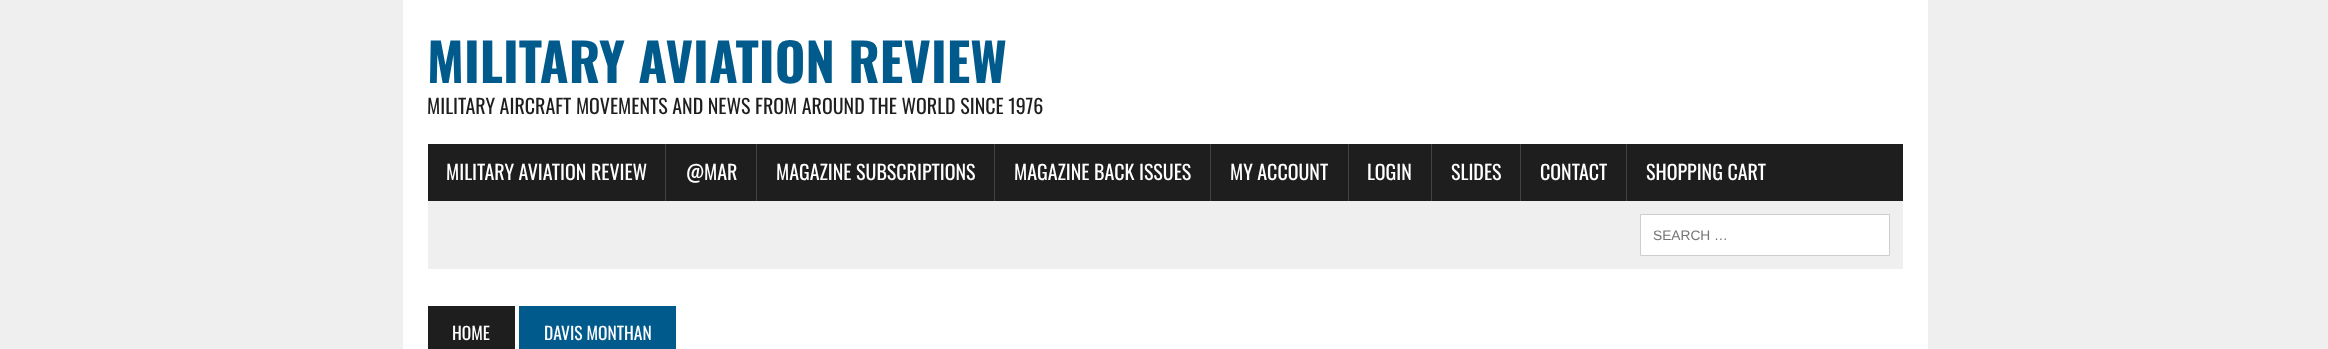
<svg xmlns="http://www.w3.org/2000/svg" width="2328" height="349">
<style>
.a{font:bold 52.5px Oswald;fill:#005a8c}
.b{font:20px Oswald;fill:#1f1e1e}
.c{font:20px Oswald;fill:#fff}
.d{font:13.75px Liberation Sans;fill:#757575}
.e{font:17.5px Oswald;fill:#fff}
</style>
<rect width="100%" height="100%" fill="#efefef"/>
<path fill="#fff" d="M403 0h1525v349H403z"/>
<path fill="#1f1e1e" d="M428 144h1475v57H428z"/>
<path fill="#424242" d="M665 144h1v57H665z"/>
<path fill="#424242" d="M756 144h1v57H756z"/>
<path fill="#424242" d="M994 144h1v57H994z"/>
<path fill="#424242" d="M1210 144h1v57H1210z"/>
<path fill="#424242" d="M1348 144h1v57H1348z"/>
<path fill="#424242" d="M1431 144h1v57H1431z"/>
<path fill="#424242" d="M1520 144h1v57H1520z"/>
<path fill="#424242" d="M1626 144h1v57H1626z"/>
<path fill="#efefef" d="M428 201h1475v68H428z"/>
<path fill="#fff" stroke="#cdcdcd" d="M1640.5 214.5h249v41H1640.5z"/>
<path fill="#1f1e1e" d="M428 306h87v43H428z"/>
<path fill="#005a8c" d="M519 306h157v43H519z"/>
<text class="a" x="427" y="83">MILITARY AVIATION REVIEW</text>
<text class="b" x="427" y="114">MILITARY AIRCRAFT MOVEMENTS AND NEWS FROM AROUND THE WORLD SINCE 1976</text>
<text class="c" x="446" y="180">MILITARY AVIATION REVIEW</text>
<text class="c" x="686" y="180">@MAR</text>
<text class="c" x="776" y="180">MAGAZINE SUBSCRIPTIONS</text>
<text class="c" x="1014" y="180">MAGAZINE BACK ISSUES</text>
<text class="c" x="1230" y="180">MY ACCOUNT</text>
<text class="c" x="1367" y="180">LOGIN</text>
<text class="c" x="1451" y="180">SLIDES</text>
<text class="c" x="1540" y="180">CONTACT</text>
<text class="c" x="1646" y="180">SHOPPING CART</text>
<text class="d" x="1653" y="240">SEARCH …</text>
<text class="e" x="452" y="340">HOME</text>
<text class="e" x="544" y="340">DAVIS MONTHAN</text>
</svg>
